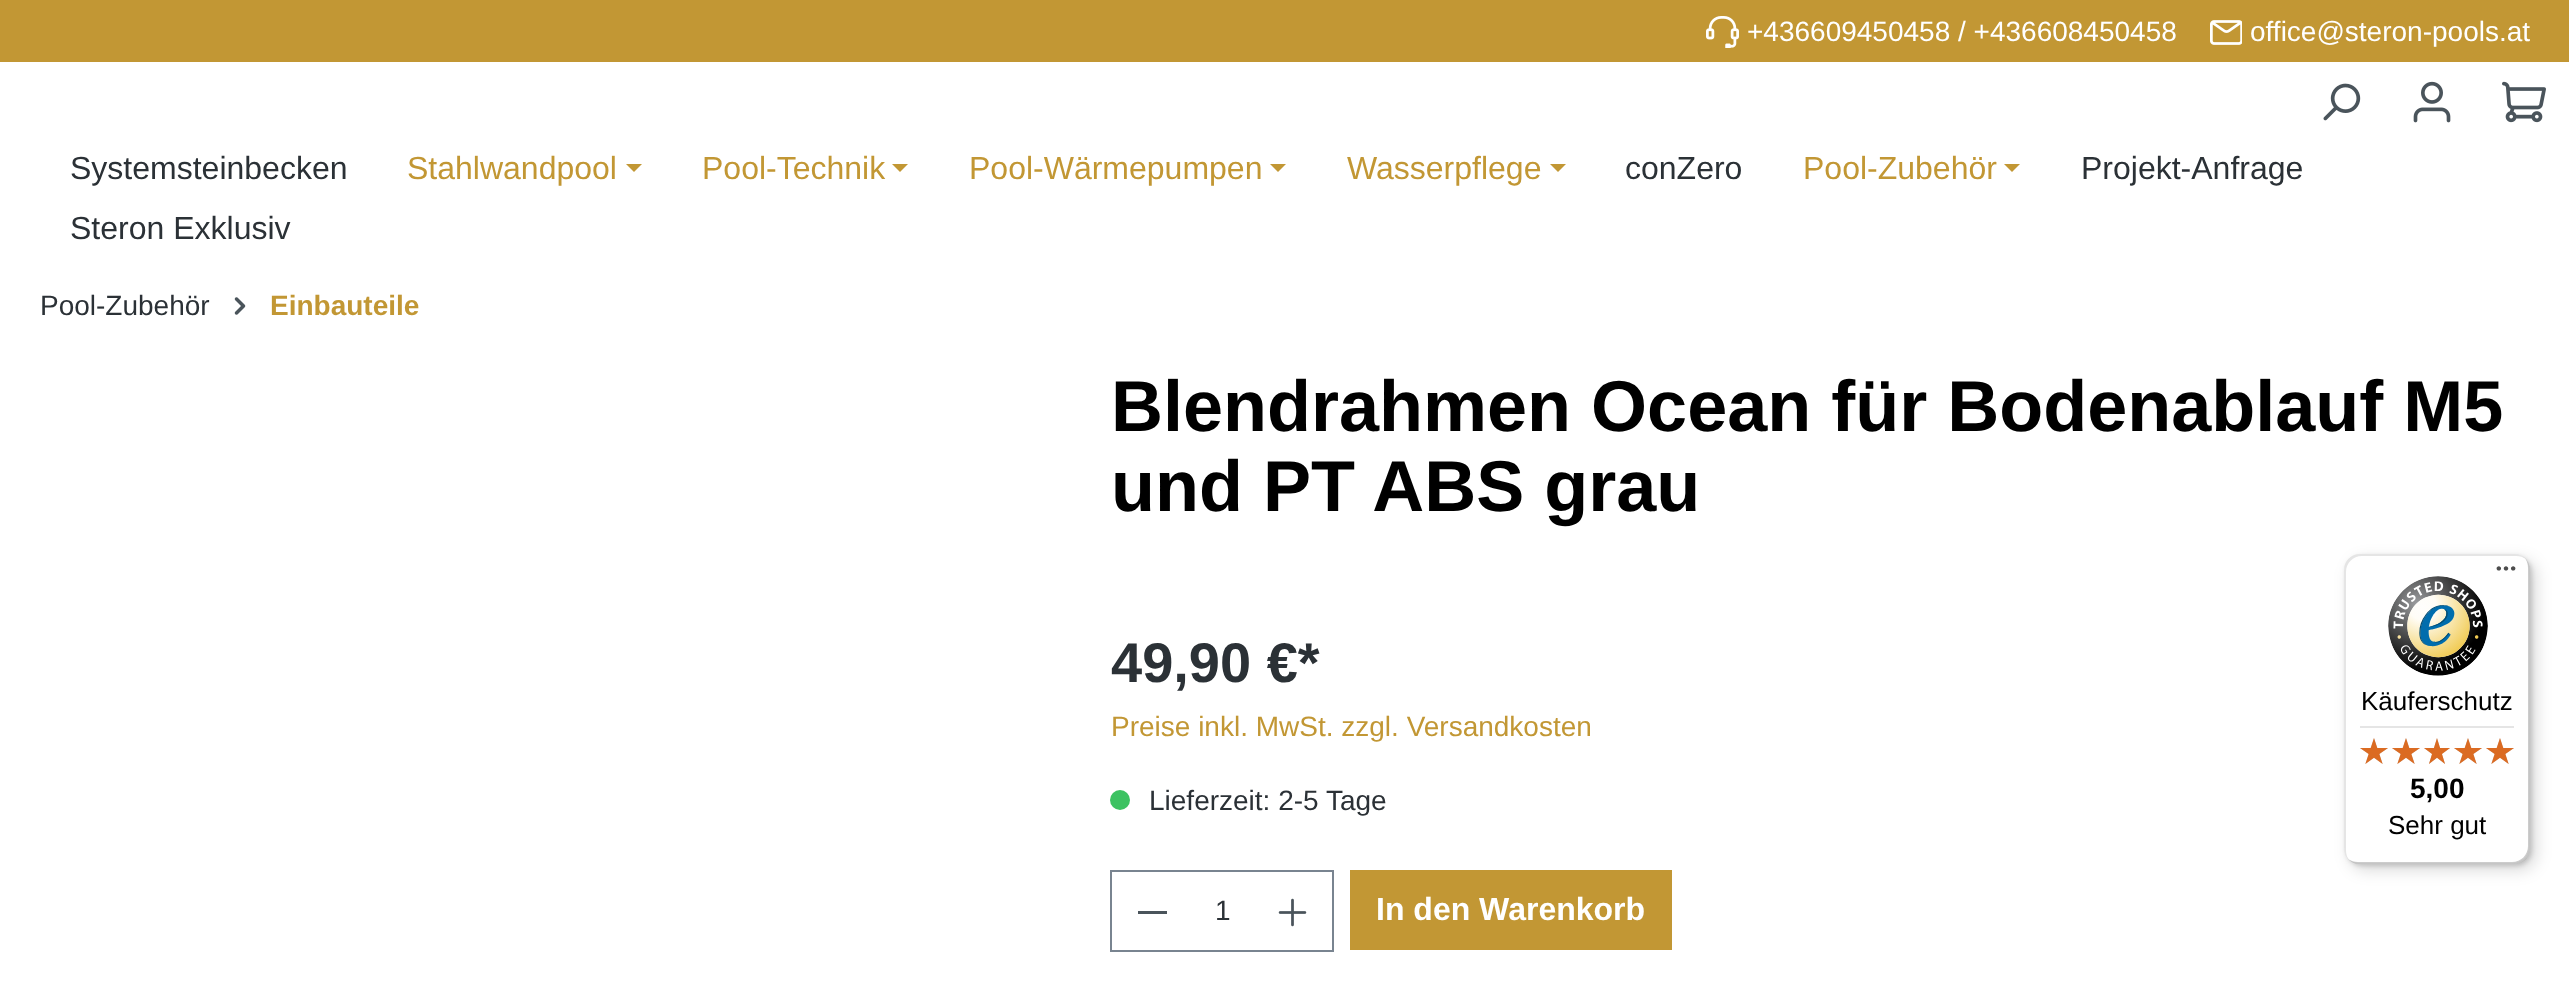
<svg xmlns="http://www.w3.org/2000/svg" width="2569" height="991">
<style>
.a{font:28px Liberation Sans;fill:#fff}
.b{font:32px Liberation Sans;fill:#2b3136}
.c{font:32px Liberation Sans;fill:#c29734}
.d{font:28px Liberation Sans;fill:#2b3136}
.e{font:bold 28px Liberation Sans;fill:#c29734}
.f{font:bold 72px Liberation Sans;fill:#000}
.g{font:bold 56px Liberation Sans;fill:#2b3136}
.h{font:28px Liberation Sans;fill:#c29734}
.i{font:bold 32px Liberation Sans;fill:#fff}
.j{font:26px Liberation Sans;fill:#000}
.k{font:bold 28px Liberation Sans;fill:#000}
</style>
<rect width="100%" height="100%" fill="#fff"/>
<path fill="#c29734" d="M0 0h2569v62H0z"/>
<image href="1.png" x="1706" y="16" width="33" height="32"/>
<image href="2.png" x="2210" y="20" width="32" height="25"/>
<image href="3.png" x="2323" y="83" width="38" height="38"/>
<image href="4.png" x="2413" y="81" width="38" height="42"/>
<image href="5.png" x="2502" y="81" width="44" height="42"/>
<path fill="#c29734" d="M626 164h16l-8 8z"/>
<path fill="#c29734" d="M892 164h16l-8 8z"/>
<path fill="#c29734" d="M1270 164h16l-8 8z"/>
<path fill="#c29734" d="M1550 164h16l-8 8z"/>
<path fill="#c29734" d="M2004 164h16l-8 8z"/>
<image href="6.png" x="234" y="297" width="12" height="18"/>
<circle fill="#3cc261" cx="1120" cy="800" r="10"/>
<path fill="#798490" d="M1110 870h224v2H1110z"/>
<path fill="#798490" d="M1110 950h144v2H1110z"/>
<path fill="#798490" d="M1110 870h2v82H1110z"/>
<path fill="#4a545b" d="M1138 911h29v3H1138z"/>
<path fill="#798490" d="M1332 870h2v82H1332z"/>
<path fill="#798490" d="M1252 950h82v2H1252z"/>
<image href="7.png" x="1278" y="898" width="29" height="29"/>
<path fill="#c29734" d="M1350 870h322v80H1350z"/>
<rect fill="#00000026" filter="blur(8px)" x="2350" y="560" width="186" height="310" rx="16"/>
<rect fill="#00000026" filter="blur(2px)" x="2346" y="556" width="186" height="310" rx="16"/>
<rect fill="#fff" x="2344" y="554" width="186" height="310" rx="16"/>
<path fill="#0000001a" d="M2362 556h154c4 0 7 1 10 3c-3-3-7-5-12-5h-154c-9 0-16 7-16 16v278c0 5 2 9 5 12c-2-3-3-6-3-10v-278c0-9 7-16 16-16z"/>
<path fill="#00000033" d="M2348 859c3 3 7 5 12 5h154c9 0 16-7 16-16v-278c0-5-2-9-5-12c2 3 3 6 3 10v278c0 9-7 16-16 16h-154c-4 0-7-1-10-3z"/>
<path fill="#32323233" d="M2349 859c3 3 7 5 11 5h154c9 0 16-7 16-16v-278c0-4-2-8-5-11c3 3 4 6 4 10v278c0 9-7 16-16 16h-154c-4 0-7-1-10-4z"/>
<path fill="#ffffff4d" d="M2349 859c3 3 7 5 11 5h154c9 0 16-7 16-16v-278c0-4-2-8-5-11c3 3 4 6 4 10v278c0 9-7 16-16 16h-154c-4 0-7-1-10-4z"/>
<image href="8.png" x="2496" y="566" width="20" height="5"/>
<image href="9.png" x="2388" y="576" width="100" height="100"/>
<path fill="#e5e5e5" d="M2360 726h154v2H2360z"/>
<image href="10.png" x="2360" y="738" width="28" height="26"/>
<image href="10.png" x="2392" y="738" width="28" height="26"/>
<image href="11.png" x="2424" y="738" width="26" height="26"/>
<image href="10.png" x="2454" y="738" width="28" height="26"/>
<image href="10.png" x="2486" y="738" width="28" height="26"/>
<image href="12.png" x="2360" y="738" width="28" height="26"/>
<image href="12.png" x="2392" y="738" width="28" height="26"/>
<image href="13.png" x="2424" y="738" width="26" height="26"/>
<image href="12.png" x="2454" y="738" width="28" height="26"/>
<image href="12.png" x="2486" y="738" width="28" height="26"/>
<text class="a" x="1747" y="41">+436609450458 / +436608450458</text>
<text class="a" x="2250" y="41">office@steron-pools.at</text>
<text class="b" x="70" y="179">Systemsteinbecken</text>
<text class="c" x="407" y="179">Stahlwandpool</text>
<text class="c" x="702" y="179">Pool-Technik</text>
<text class="c" x="969" y="179">Pool-Wärmepumpen</text>
<text class="c" x="1347" y="179">Wasserpflege</text>
<text class="b" x="1625" y="179">conZero</text>
<text class="c" x="1803" y="179">Pool-Zubehör</text>
<text class="b" x="2081" y="179">Projekt-Anfrage</text>
<text class="b" x="70" y="239">Steron Exklusiv</text>
<text class="d" x="40" y="315">Pool-Zubehör</text>
<text class="e" x="270" y="315">Einbauteile</text>
<text class="f" x="1111" y="431">Blendrahmen Ocean für Bodenablauf M5</text>
<text class="f" x="1111" y="511">und PT ABS grau</text>
<text class="g" x="1111" y="682">49,90 €*</text>
<text class="h" x="1111" y="736">Preise inkl. MwSt. zzgl. Versandkosten</text>
<text class="d" x="1149" y="810">Lieferzeit: 2-5 Tage</text>
<text class="d" x="1215" y="920">1</text>
<text class="i" x="1376" y="920">In den Warenkorb</text>
<text class="j" x="2361" y="710">Käuferschutz</text>
<text class="k" x="2410" y="798">5,00</text>
<text class="j" x="2388" y="834">Sehr gut</text>
</svg>
